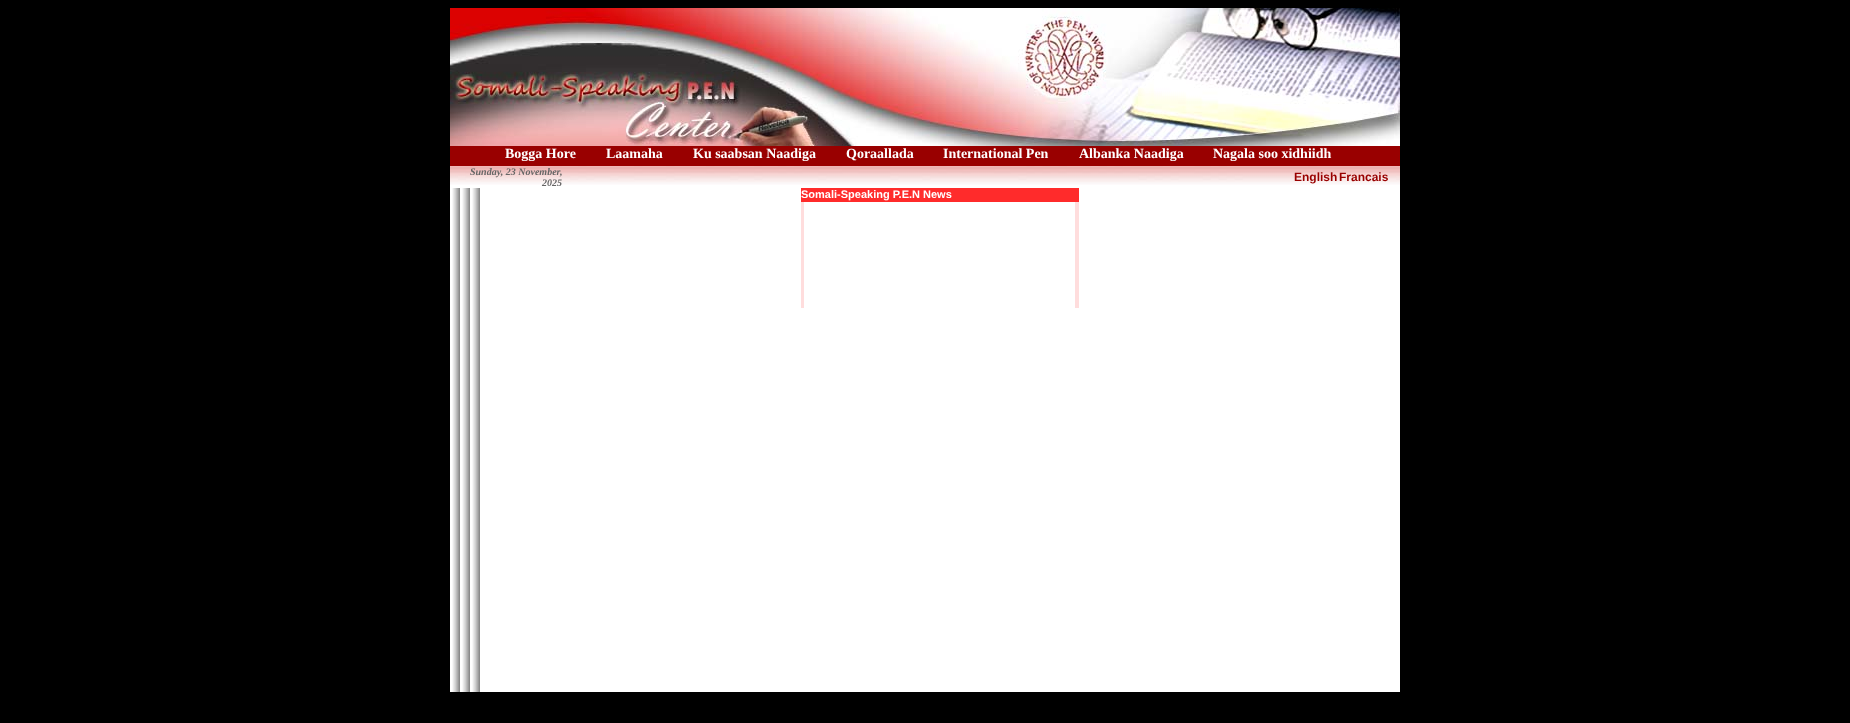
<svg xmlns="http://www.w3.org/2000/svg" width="1850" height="723">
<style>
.a{font:bold 14px Liberation Serif;fill:#fff}
.b{font:italic bold 10px Liberation Serif;fill:#666}
.c{font:bold 12px Liberation Sans;fill:#900}
.d{font:bold 11px Liberation Sans;fill:#fff}
</style>
<rect width="100%" height="100%" fill="#000"/>
<path fill="#fff" d="M450 188h950v504H450z"/>
<image href="1.png" x="450" y="8" width="950" height="138"/>
<path fill="#900" d="M450 146h950v20H450z"/>
<path fill="#fff" d="M450 185h950v3H450z"/>
<image href="2.png" x="450" y="166" width="112" height="19"/>
<image href="3.png" x="562" y="166" width="730" height="19"/>
<image href="4.png" x="1292" y="166" width="47" height="19"/>
<image href="5.png" x="1339" y="166" width="49" height="19"/>
<image href="6.png" x="1388" y="166" width="12" height="19"/>
<image href="7.png" x="452" y="188" width="28" height="504"/>
<path fill="#fdd" d="M801 202h278v106H801z"/>
<path fill="#ff2b2b" d="M801 188h278v14H801z"/>
<path fill="#fff" d="M804 202h271v106H804z"/>
<text class="a" x="505" y="158">Bogga Hore</text>
<text class="a" x="606" y="158">Laamaha</text>
<text class="a" x="693" y="158">Ku saabsan Naadiga</text>
<text class="a" x="846" y="158">Qoraallada</text>
<text class="a" x="943" y="158">International Pen</text>
<text class="a" x="1079" y="158">Albanka Naadiga</text>
<text class="a" x="1213" y="158">Nagala soo xidhiidh</text>
<text class="b" x="470" y="175">Sunday, 23 November,</text>
<text class="b" x="542" y="186">2025</text>
<text class="c" x="1294" y="181">English</text>
<text class="c" x="1339" y="181">Francais</text>
<text class="d" x="801" y="198">Somali-Speaking P.E.N News</text>
</svg>
